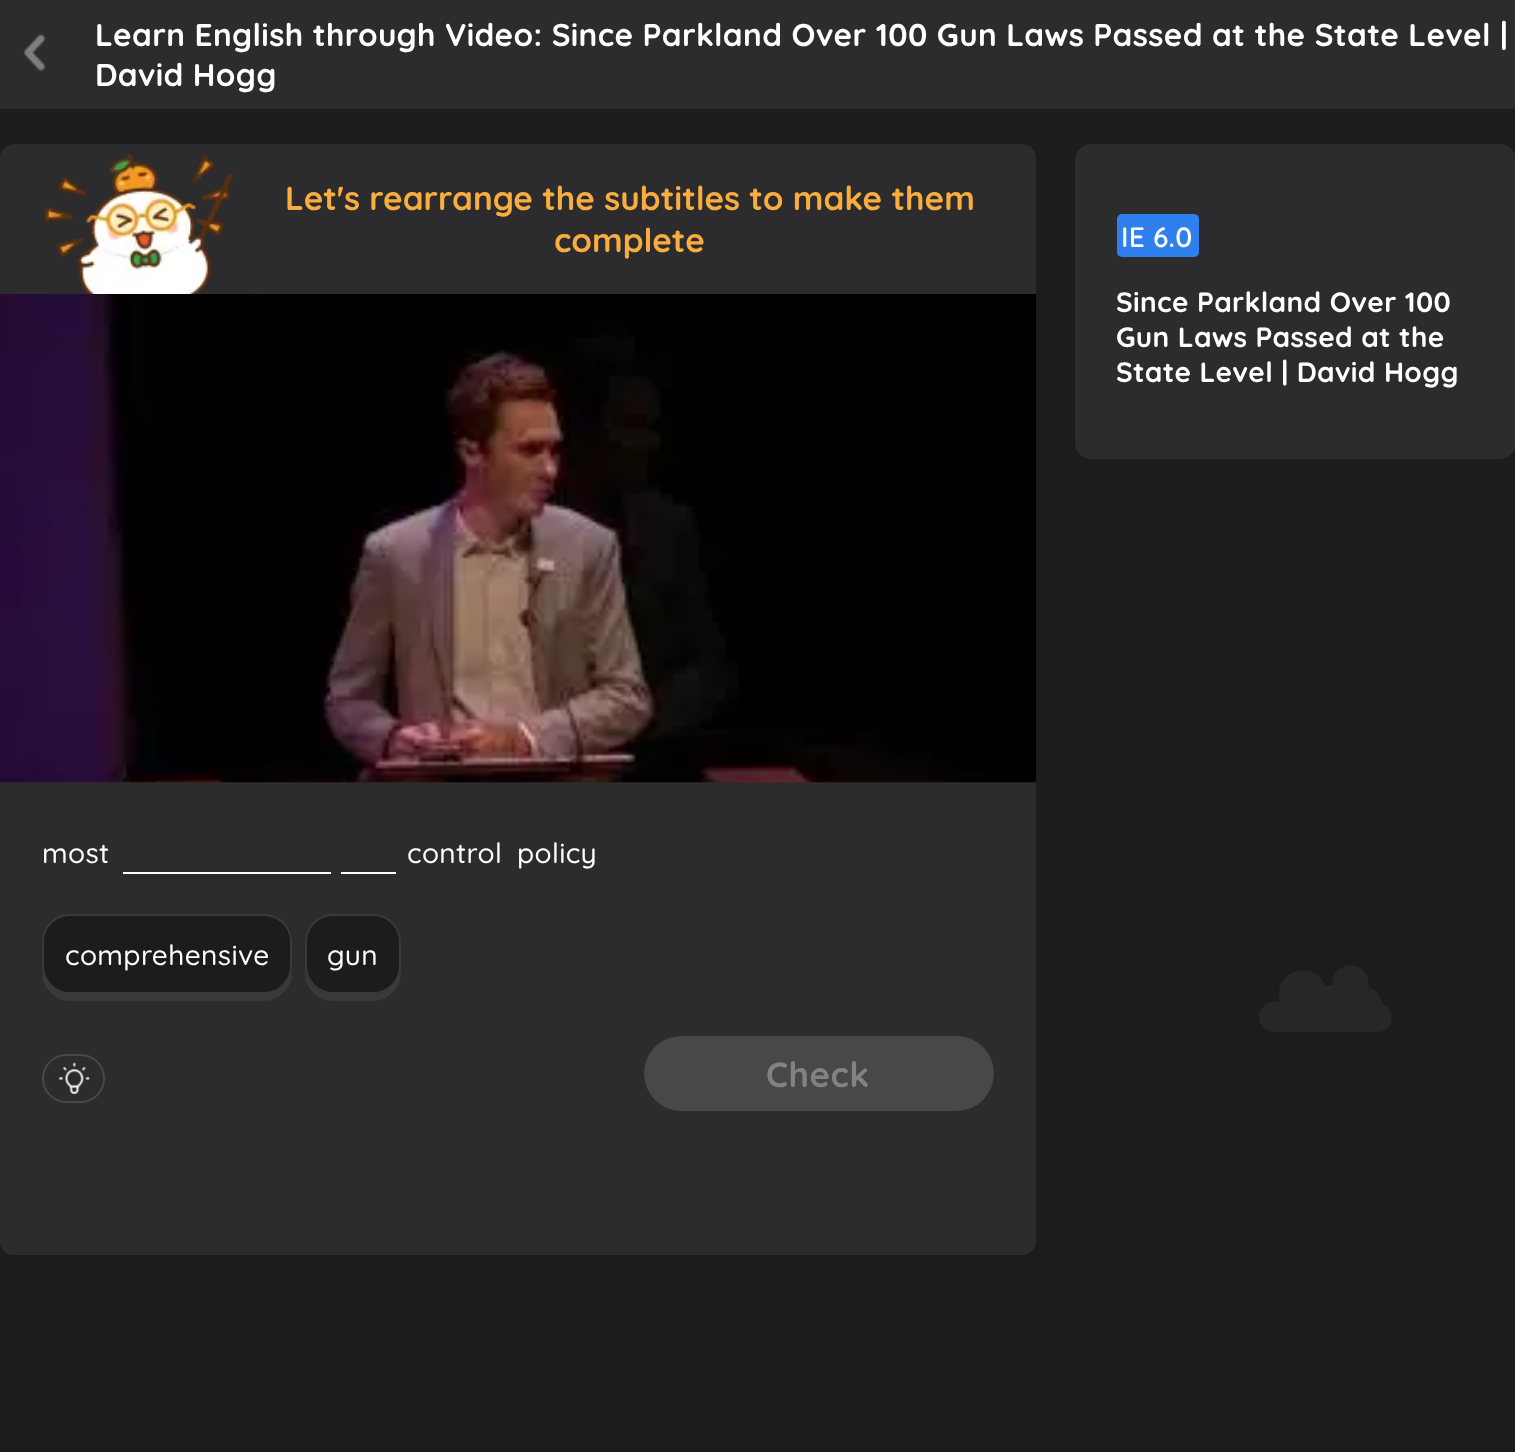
<svg xmlns="http://www.w3.org/2000/svg" width="1515" height="1452">
<style>
.a{font:bold 31.5px Quicksand;letter-spacing:0.35px;fill:#fff}
.b{font:bold 33.25px Quicksand;fill:#f8ad3e}
.c{font:500 28px Quicksand;letter-spacing:0.35px;fill:#fff}
.d{font:bold 35px Quicksand;letter-spacing:0.5px;fill:#828282}
.e{font:600 28px Quicksand;letter-spacing:0.25px;fill:#fff}
.f{font:bold 28px Quicksand;letter-spacing:0.35px;fill:#fff}
</style>
<rect width="100%" height="100%" fill="#1c1c1e"/>
<image href="1.png" x="1259" y="965" width="133" height="67"/>
<path fill="#2c2c2e" d="M0 0h1515v109H0z"/>
<image href="2.png" x="23" y="34" width="23" height="38"/>
<rect fill="#2c2c2e" y="144" width="1036" height="1111" rx="14"/>
<image href="3.png" x="44" y="153" width="190" height="141"/>
<rect fill="#2c2c2e" y="782" width="1036" height="473" rx="14"/>
<image href="4.png" x="0" y="294" width="1036" height="489"/>
<path fill="#fff" d="M123 872h208v2H123z"/>
<path fill="#fff" d="M341 872h55v2H341z"/>
<path fill="#3a3a3c" d="M42 966v7c0 15 13 28 28 28h194c15 0 28-13 28-28v-3c-2 13-14 24-28 24h-194c-15 0-28-13-28-28z"/>
<rect fill="#1c1c1e" stroke="#3a3a3c" stroke-width="2" x="43" y="915" width="248" height="78" rx="27"/>
<path fill="#3a3a3c" d="M305 971v2c0 15 13 28 28 28h40c15 0 28-13 28-28v-28v21c0 15-13 28-28 28h-41c-13 0-25-10-27-23z"/>
<rect fill="#1c1c1e" stroke="#3a3a3c" stroke-width="2" x="306" y="915" width="94" height="78" rx="27"/>
<rect fill="none" stroke="#48484a" stroke-width="2" x="43" y="1055" width="61" height="47" rx="23.5"/>
<image href="5.png" x="58" y="1062" width="32" height="32"/>
<rect fill="#48484a" x="644" y="1036" width="350" height="75" rx="37.5"/>
<rect fill="#2c2c2e" x="1075" y="144" width="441" height="315" rx="16"/>
<rect fill="#2f80ed" stroke="#2f80ed" stroke-width="2" x="1118" y="215" width="80" height="41" rx="4"/>
<text class="a" x="95" y="46">Learn English through Video: Since Parkland Over 100 Gun Laws Passed at the State Level |</text>
<text class="a" x="95" y="86">David Hogg</text>
<text class="b" x="285" y="210">Let's rearrange the subtitles to make them</text>
<text class="b" x="554" y="252">complete</text>
<text class="c" x="42" y="863">most</text>
<text class="c" x="407" y="863">control</text>
<text class="c" x="517" y="863">policy</text>
<text class="c" x="65" y="965">comprehensive</text>
<text class="c" x="327" y="965">gun</text>
<text class="d" x="766" y="1087">Check</text>
<text class="e" x="1121" y="247">IE 6.0</text>
<text class="f" x="1116" y="312">Since Parkland Over 100</text>
<text class="f" x="1116" y="347">Gun Laws Passed at the</text>
<text class="f" x="1116" y="382">State Level | David Hogg</text>
</svg>
